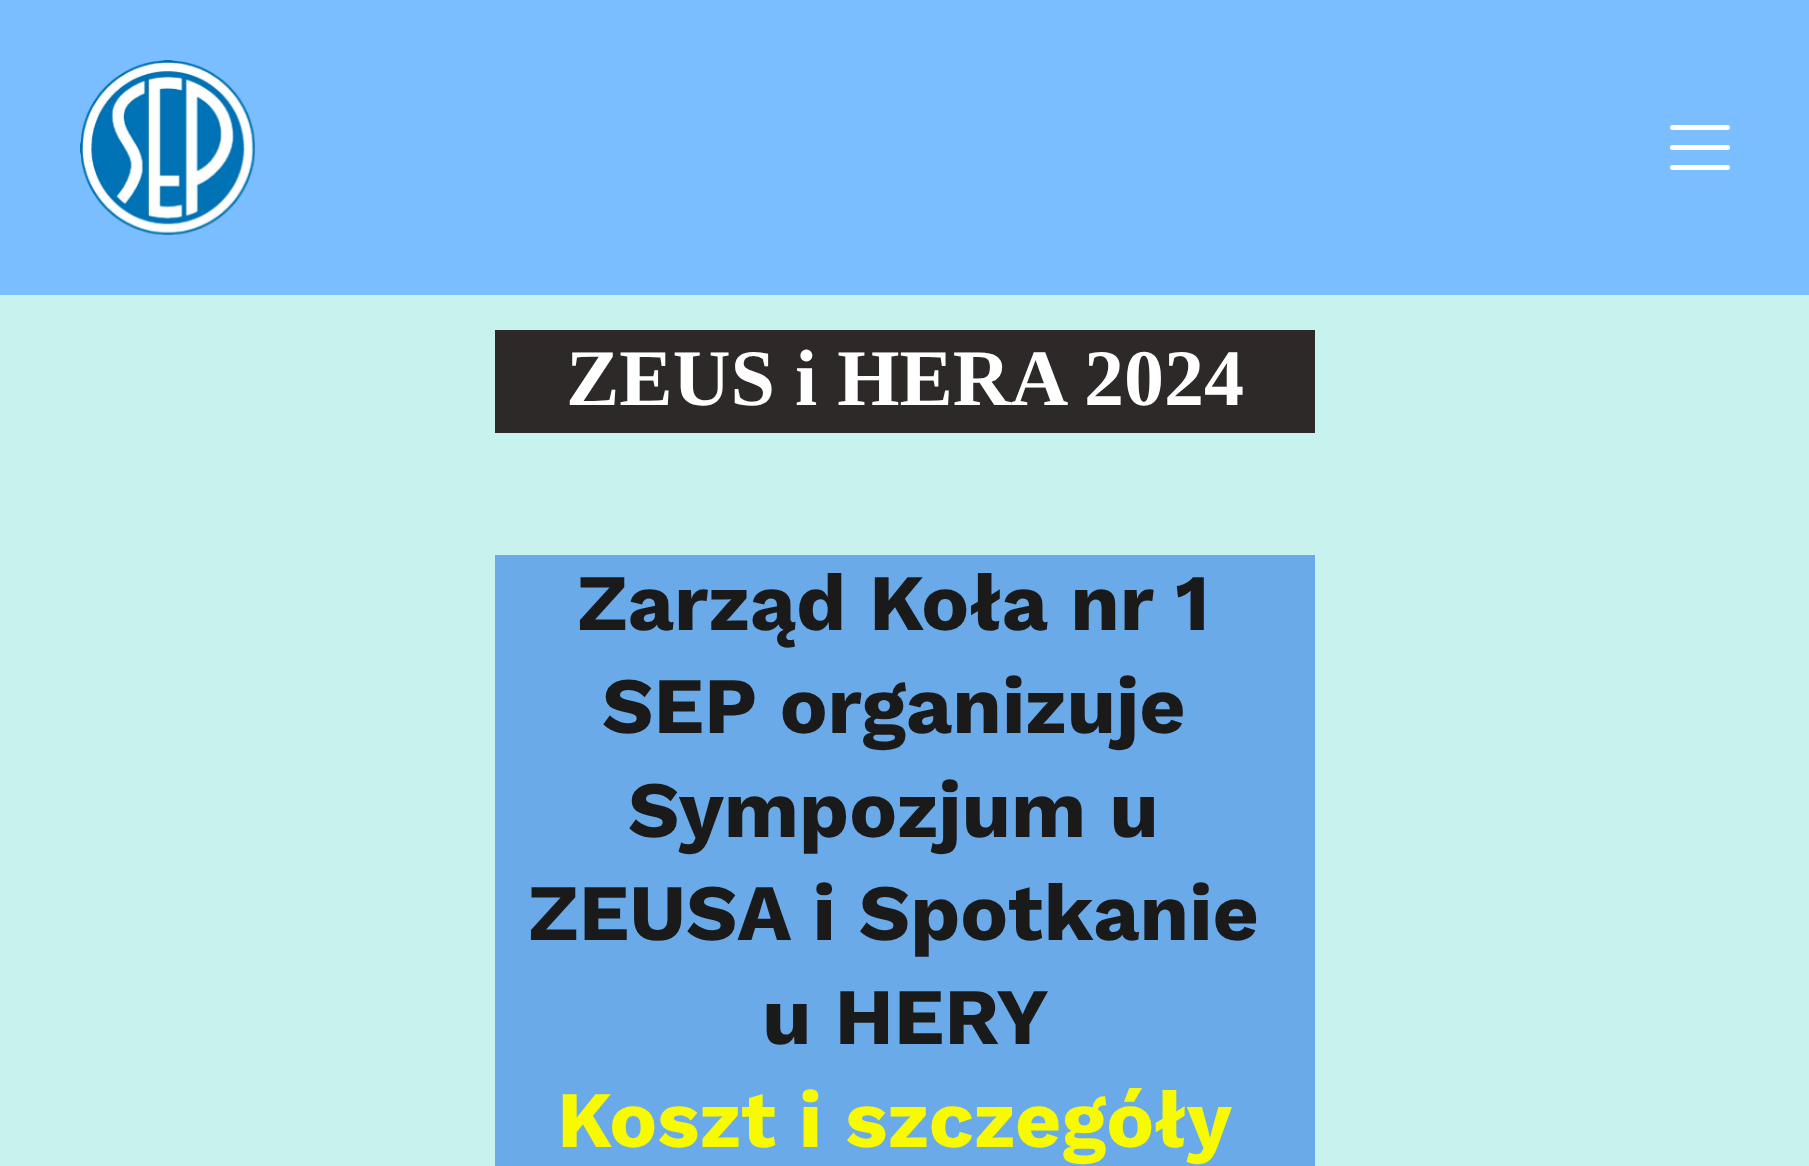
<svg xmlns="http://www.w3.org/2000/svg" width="1809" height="1166">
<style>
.a{font:bold 80px Liberation Serif;fill:#fff}
.b{font:bold 80px Work Sans;fill:#1a1a1a}
.c{font:bold 80px Work Sans;fill:#f8fa02}
</style>
<rect width="100%" height="100%" fill="#c7f2ed"/>
<path fill="#7abeff" d="M0 0h1809v295H0z"/>
<image href="1.png" x="80" y="60" width="175" height="175"/>
<rect fill="#fff" x="1670" y="125" width="60" height="5" rx="2.5"/>
<rect fill="#fff" x="1670" y="145" width="60" height="5" rx="2.5"/>
<rect fill="#fff" x="1670" y="165" width="60" height="5" rx="2.5"/>
<path fill="#2e2929" d="M495 330h820v103H495z"/>
<path fill="#6baae8" d="M495 555h820v611H495z"/>
<text class="a" x="566" y="405">ZEUS i HERA 2024</text>
<text class="b" x="577" y="630">Zarząd Koła nr 1</text>
<text class="b" x="602" y="733">SEP organizuje</text>
<text class="b" x="628" y="837">Sympozjum u</text>
<text class="b" x="528" y="940">ZEUSA i Spotkanie</text>
<text class="b" x="762" y="1044">u HERY</text>
<text class="c" x="557" y="1147">Koszt i szczegóły</text>
</svg>
